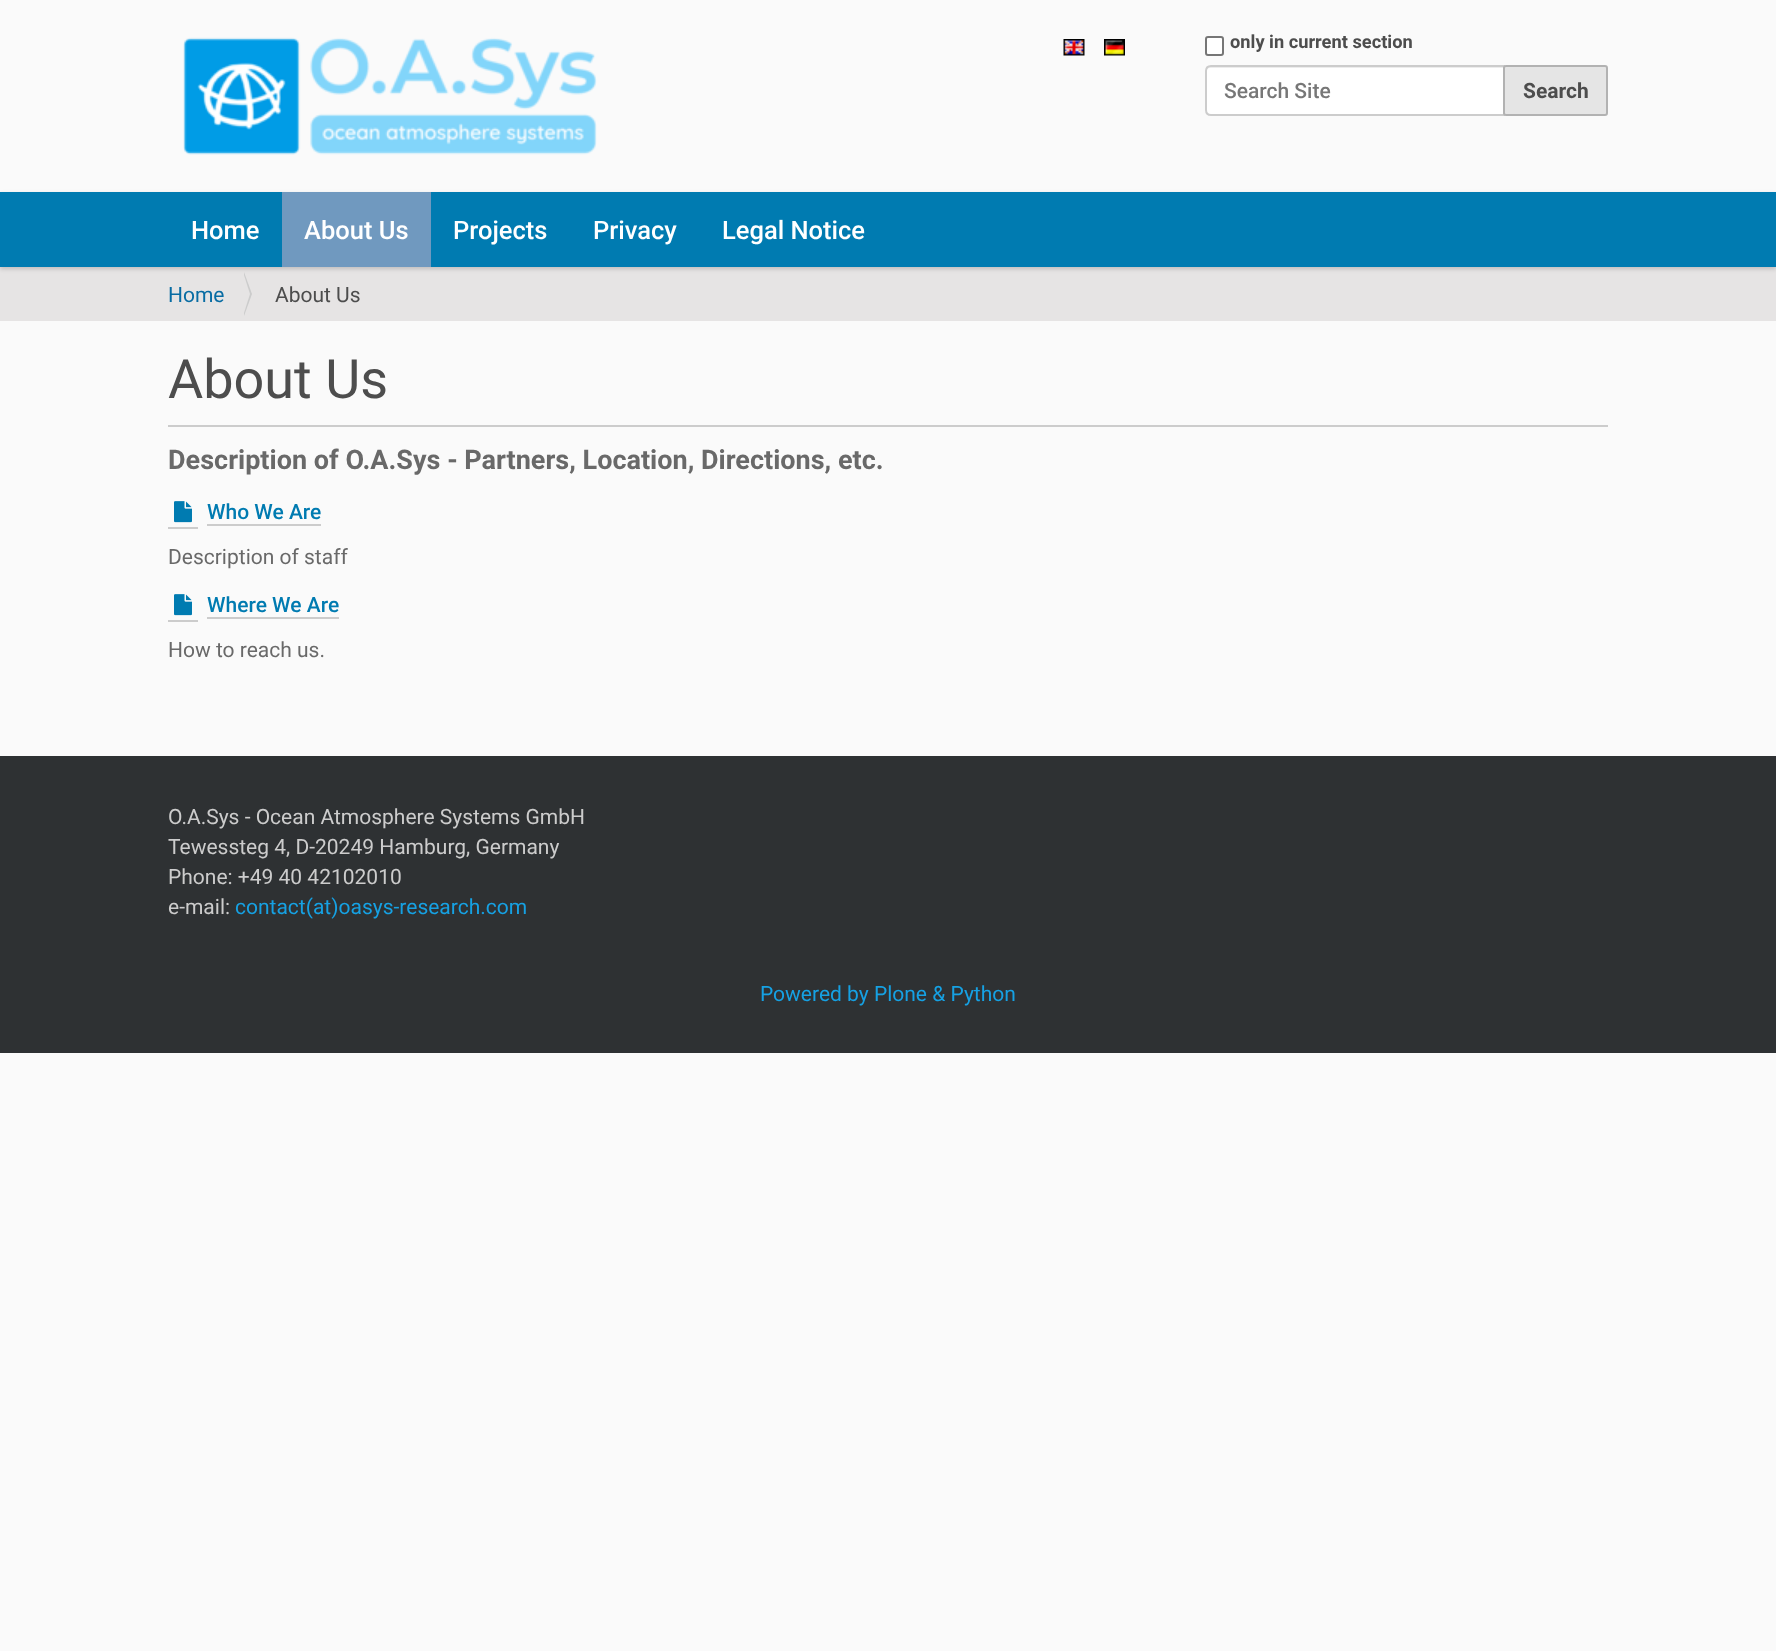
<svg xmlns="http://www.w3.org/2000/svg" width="1776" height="1651">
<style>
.a{font:bold 18.25px Roboto;fill:#4d4d4d}
.b{font:500 21px Roboto;fill:#777}
.c{font:bold 21px Roboto;fill:#4d4d4d}
.d{font:500 25.5px Roboto;fill:#fff}
.e{font:21px Roboto;fill:#086ca3}
.f{font:21px Roboto;fill:#4d4d4d}
.g{font:54px Roboto;fill:#4d4d4d}
.h{font:bold 27px Roboto;fill:#696969}
.i{font:500 21px Roboto;fill:#007bb1}
.j{font:21px Roboto;fill:#696969}
.k{font:21px Roboto;fill:#ccc}
.l{font:21px Roboto;fill:#16a1e3}
</style>
<rect width="100%" height="100%" fill="#fafafa"/>
<image href="1.png" x="183" y="37" width="414" height="118"/>
<image href="2.png" x="1063" y="39" width="22" height="17"/>
<image href="3.png" x="1104" y="39" width="21" height="17"/>
<rect fill="#fff" stroke="#767676" stroke-width="2" x="1206" y="37" width="17" height="18" rx="2"/>
<path fill="#fff" d="M1211 65h294v51h-294c-3.5 0-6-2.5-6-6v-39c0-3.5 2.5-6 6-6z"/>
<path fill="#ececec" d="M1210 68h293v-2h-292c-3 0-5 2-5 5v1c0-2 2-4 4-4z"/>
<path fill="none" stroke="#ccc" stroke-width="2" d="M1211 66h293v49h-293c-3 0-5-2-5-5v-39c0-3 2-5 5-5z"/>
<rect fill="#e5e5e5" stroke="#b2b2b2" stroke-width="2" x="1504" y="66" width="103" height="49" rx="2"/>
<path fill="#e6e4e4" d="M0 267h1776v54H0z"/>
<path fill="#0000002b" filter="blur(2px)" d="M0 194h1776v75H0z"/>
<path fill="#007bb1" d="M0 192h1776v75H0z"/>
<path fill="#7099bf" d="M282 192h149v75H282z"/>
<path fill="#ccc" d="M244 316v-44l8 22z"/>
<path fill="#e6e4e4" d="M243 316v-44l7 22z"/>
<path fill="#ccc" d="M168 425h1440v2H168z"/>
<path fill="#ccc" d="M168 527h30v2H168z"/>
<path fill="#ccc" d="M207 524h114v2H207z"/>
<image href="4.png" x="174" y="501" width="18" height="22"/>
<path fill="#ccc" d="M168 620h30v2H168z"/>
<path fill="#ccc" d="M207 617h132v2H207z"/>
<image href="4.png" x="174" y="594" width="18" height="22"/>
<path fill="#2e3133" d="M0 756h1776v297H0z"/>
<text class="a" x="1230" y="48">only in current section</text>
<text class="b" x="1224" y="98">Search Site</text>
<text class="c" x="1523" y="98">Search</text>
<text class="d" x="191" y="239">Home</text>
<text class="d" x="304" y="239">About Us</text>
<text class="d" x="453" y="239">Projects</text>
<text class="d" x="593" y="239">Privacy</text>
<text class="d" x="722" y="239">Legal Notice</text>
<text class="e" x="168" y="302">Home</text>
<text class="f" x="275" y="302">About Us</text>
<text class="g" x="168" y="398">About Us</text>
<text class="h" x="168" y="469">Description of O.A.Sys - Partners, Location, Directions, etc.</text>
<text class="i" x="207" y="519">Who We Are</text>
<text class="j" x="168" y="564">Description of staff</text>
<text class="i" x="207" y="612">Where We Are</text>
<text class="j" x="168" y="657">How to reach us.</text>
<text class="k" x="168" y="824">O.A.Sys - Ocean Atmosphere Systems GmbH</text>
<text class="k" x="168" y="854">Tewessteg 4, D-20249 Hamburg, Germany</text>
<text class="k" x="168" y="884">Phone: +49 40 42102010</text>
<text class="k" x="168" y="914">e-mail:</text>
<text class="l" x="235" y="914">contact(at)oasys-research.com</text>
<text class="l" x="760" y="1001">Powered by Plone &amp; Python</text>
</svg>
